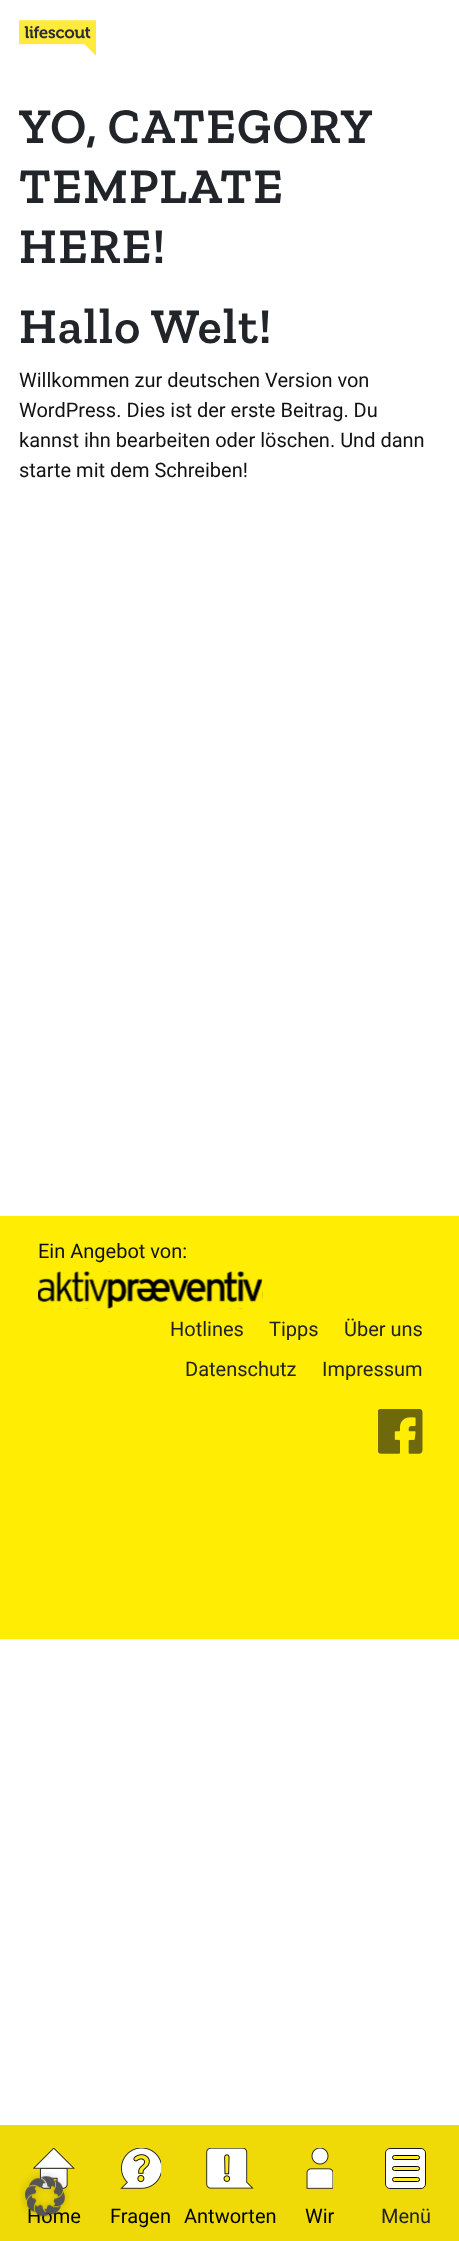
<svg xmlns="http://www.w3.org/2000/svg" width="459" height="2241">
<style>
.a{font:600 50px Zilla Slab;letter-spacing:1.25px;fill:#212529}
.b{font:20px Roboto;fill:#111}
.c{font:20px Roboto;fill:#222}
.d{font:20px Roboto;fill:#000}
.e{font:20px Roboto;fill:#212529}
</style>
<rect width="100%" height="100%" fill="#fff"/>
<image href="1.png" x="19" y="20" width="77" height="36"/>
<path fill="#ffed03" d="M0 1216h459v423H0z"/>
<image href="2.png" x="38" y="1271" width="225" height="38"/>
<image href="3.png" x="378" y="1409" width="45" height="45"/>
<path fill="#efd906" d="M0 2125h459v116H0z"/>
<image href="5.png" x="33" y="2148" width="42" height="41"/>
<image href="6.png" x="120" y="2148" width="41" height="41"/>
<image href="7.png" x="206" y="2148" width="48" height="41"/>
<image href="8.png" x="306" y="2148" width="27" height="41"/>
<rect fill="#fff" stroke="#1d1d1b" x="385.5" y="2148.5" width="40" height="40" rx="4.5"/>
<rect fill="#feeb29" stroke="#010101" x="392.5" y="2155.5" width="27" height="4" rx="2"/>
<rect fill="#feeb29" stroke="#010101" x="392.5" y="2166.5" width="27" height="4" rx="2"/>
<rect fill="#feeb29" stroke="#010101" x="392.5" y="2177.5" width="27" height="4" rx="2"/>
<text class="a" x="19" y="143" word-spacing="-2">YO, CATEGORY</text>
<text class="a" x="19" y="203">TEMPLATE</text>
<text class="a" x="19" y="263">HERE!</text>
<text class="a" x="19" y="343">Hallo Welt!</text>
<text class="b" x="19" y="387">Willkommen zur deutschen Version von</text>
<text class="b" x="19" y="417">WordPress. Dies ist der erste Beitrag. Du</text>
<text class="b" x="19" y="447">kannst ihn bearbeiten oder löschen. Und dann</text>
<text class="b" x="19" y="477">starte mit dem Schreiben!</text>
<text class="b" x="38" y="1258">Ein Angebot von:</text>
<text class="c" x="170" y="1336">Hotlines</text>
<text class="c" x="269" y="1336">Tipps</text>
<text class="c" x="344" y="1336">Über uns</text>
<text class="c" x="185" y="1376">Datenschutz</text>
<text class="c" x="322" y="1376">Impressum</text>
<text class="d" x="27" y="2223">Home</text>
<image href="4.png" x="20" y="2172" width="50" height="49"/>
<text class="d" x="110" y="2223">Fragen</text>
<text class="d" x="184" y="2223">Antworten</text>
<text class="d" x="305" y="2223">Wir</text>
<text class="e" x="381" y="2223">Menü</text>
</svg>
